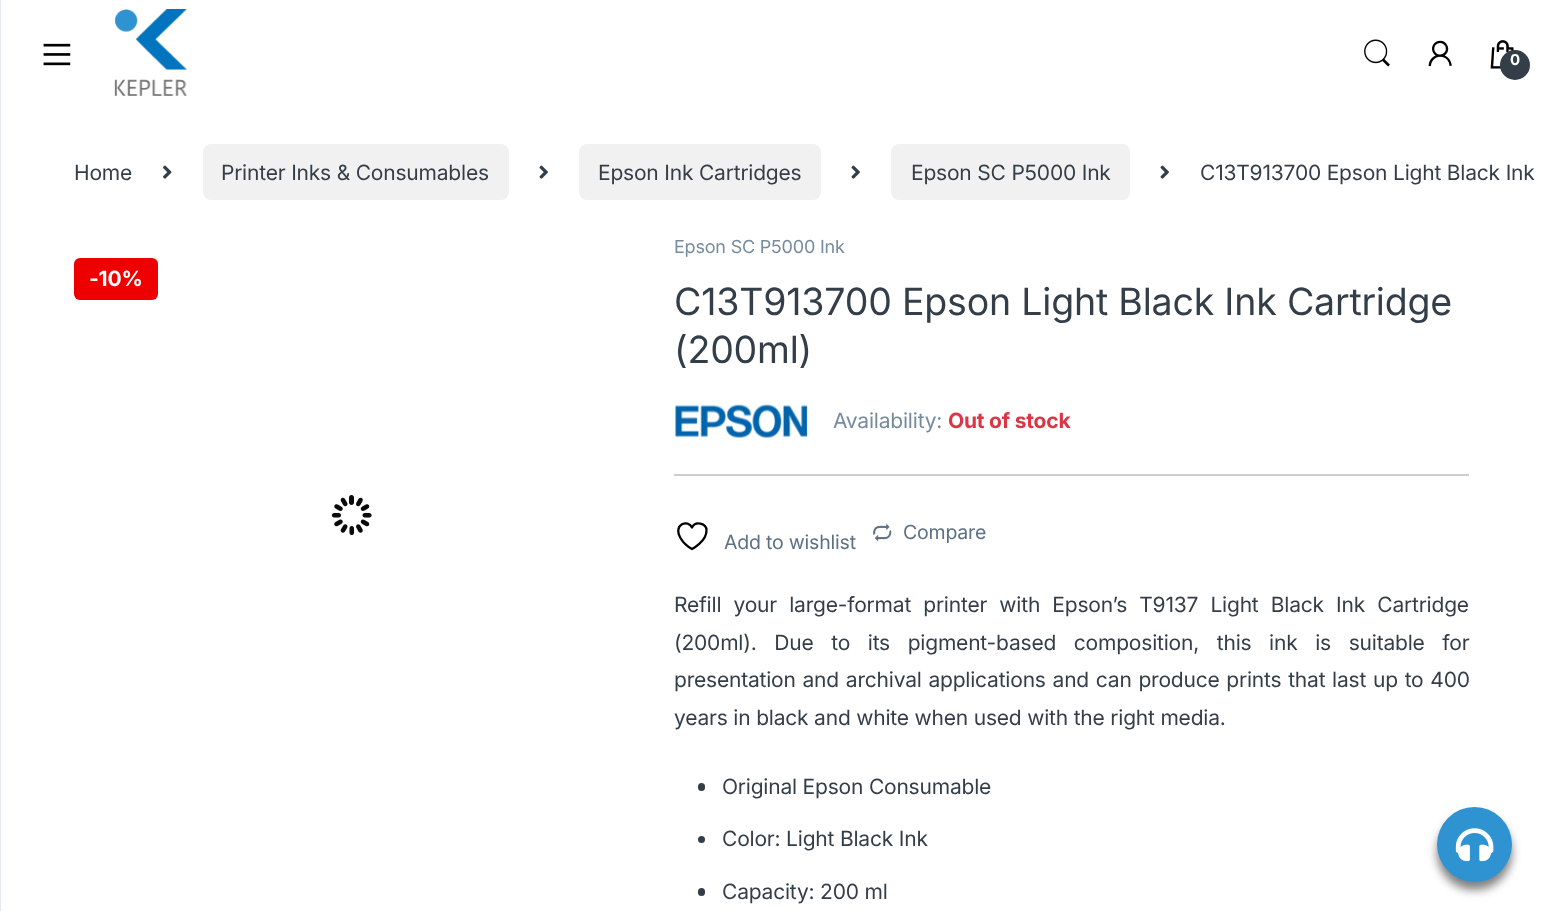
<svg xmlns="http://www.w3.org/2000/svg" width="1542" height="911">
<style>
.a{font:bold 15px Inter;letter-spacing:-0.2px;fill:#fff}
.b{font:21px Inter;letter-spacing:-0.2px;fill:#333e48}
.c{font:bold 21px Inter;letter-spacing:-0.2px;fill:#fff}
.d{font:18px Inter;letter-spacing:-0.2px;fill:#768b9e}
.e{font:37.5px Inter;letter-spacing:-0.2px;fill:#333e48}
.f{font:21px Inter;letter-spacing:-0.2px;fill:#768b9e}
.g{font:bold 21px Inter;letter-spacing:-0.2px;fill:#dc3545}
.h{font:19.5px Inter;letter-spacing:-0.2px;fill:#5d7184}
</style>
<rect width="100%" height="100%" fill="#fff"/>
<path fill="#e3e9ef" d="M0 0h1v911H0z"/>
<image href="1.png" x="43" y="43" width="28" height="23"/>
<image href="2.png" x="114" y="9" width="73" height="87"/>
<image href="3.png" x="1364" y="39" width="26" height="28"/>
<image href="4.png" x="1428" y="40" width="24" height="27"/>
<image href="5.png" x="1490" y="40" width="24" height="29"/>
<circle fill="#333e48" cx="1515" cy="65" r="15"/>
<image href="6.png" x="163" y="165" width="9" height="14"/>
<rect fill="#f1f1f1" x="203" y="144" width="306" height="56" rx="8"/>
<image href="7.png" x="539" y="165" width="9" height="14"/>
<rect fill="#f1f1f1" x="579" y="144" width="242" height="56" rx="8"/>
<image href="7.png" x="851" y="165" width="9" height="14"/>
<rect fill="#f1f1f1" x="891" y="144" width="239" height="56" rx="8"/>
<image href="7.png" x="1160" y="165" width="9" height="14"/>
<rect fill="#e00" x="74" y="258" width="84" height="42" rx="6"/>
<image href="8.png" x="331" y="495" width="41" height="41"/>
<image href="9.png" x="675" y="404" width="133" height="34"/>
<path fill="#cccfd1" d="M674 474h795v2H674z"/>
<path fill="none" stroke="#000" stroke-width="2.3" stroke-linecap="round" stroke-linejoin="round" d="M706.5 530.5c0-8-11.5-9.5-14.5-3c-3.5-8.5-19.5-3.5-11.5 10.5c2.5 4.5 7 8.5 11.5 11c0 0 14.5-7.5 14.5-18.5z"/>
<image href="10.png" x="873" y="523" width="19" height="19"/>
<rect fill="#333e48" x="698" y="783" width="7" height="8" rx="3.5"/>
<circle fill="#333e48" cx="701.5" cy="839.5" r="3.5"/>
<rect fill="#333e48" x="698" y="888" width="7" height="8" rx="3.5"/>
<rect fill="#808080" filter="blur(5px)" x="1437" y="815" width="75" height="75" rx="37.5"/>
<circle fill="#3093d1" cx="1474.5" cy="844.5" r="37.5"/>
<image href="11.png" x="1455" y="828" width="39" height="34"/>
<text class="a" x="1510" y="65">0</text>
<text class="b" x="74" y="180">Home</text>
<text class="b" x="221" y="180">Printer Inks &amp; Consumables</text>
<text class="b" x="598" y="180">Epson Ink Cartridges</text>
<text class="b" x="911" y="180">Epson SC P5000 Ink</text>
<text class="b" x="1200" y="180">C13T913700 Epson Light Black Ink</text>
<text class="c" x="89" y="286">-10%</text>
<text class="d" x="674" y="253">Epson SC P5000 Ink</text>
<text class="e" x="674" y="315">C13T913700 Epson Light Black Ink Cartridge</text>
<text class="e" x="674" y="363">(200ml)</text>
<text class="f" x="833" y="428">Availability:</text>
<text class="g" x="948" y="428">Out of stock</text>
<text class="h" x="724" y="549">Add to wishlist</text>
<text class="h" x="903" y="539">Compare</text>
<text class="b" x="674" y="612" word-spacing="6.5">Refill your large-format printer with Epson’s T9137 Light Black Ink Cartridge</text>
<text class="b" x="674" y="650" word-spacing="12">(200ml). Due to its pigment-based composition, this ink is suitable for</text>
<text class="b" x="674" y="687" word-spacing="1.1">presentation and archival applications and can produce prints that last up to 400</text>
<text class="b" x="674" y="725">years in black and white when used with the right media.</text>
<text class="b" x="722" y="794">Original Epson Consumable</text>
<text class="b" x="722" y="846">Color: Light Black Ink</text>
<text class="b" x="722" y="899">Capacity: 200 ml</text>
</svg>
